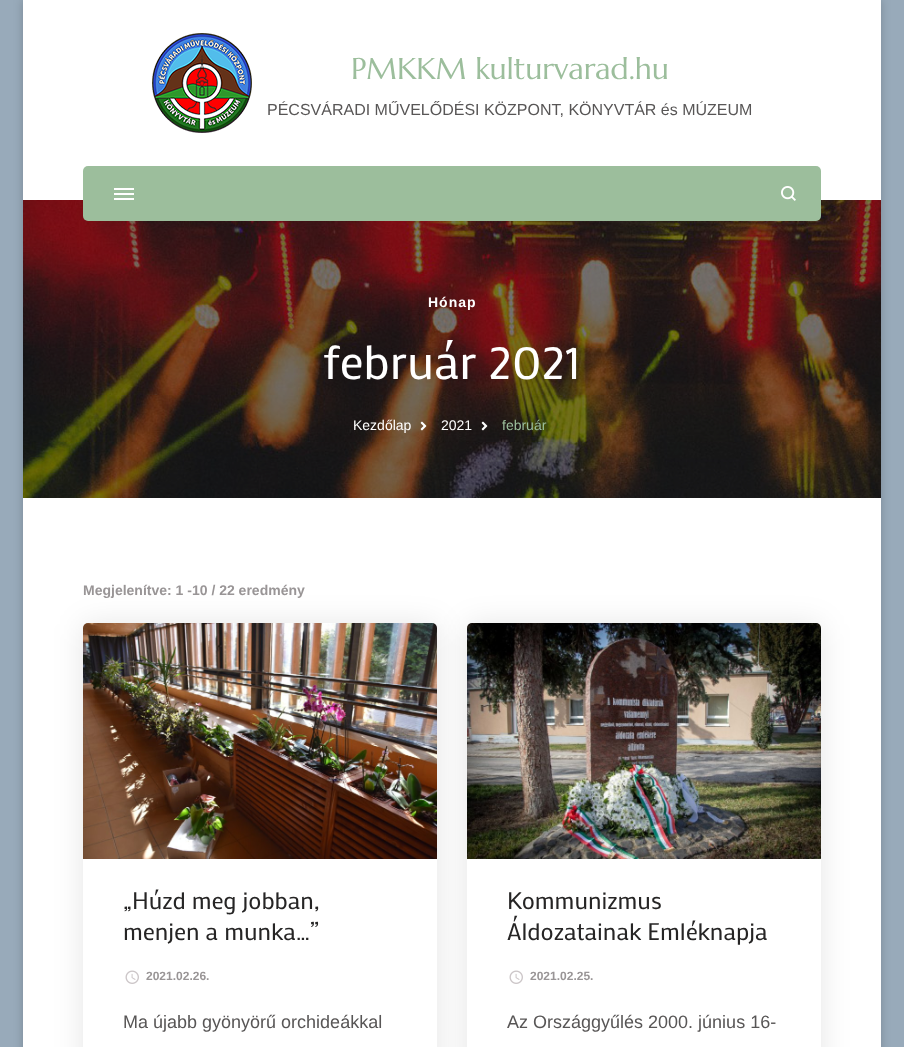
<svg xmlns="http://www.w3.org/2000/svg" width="904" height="1047">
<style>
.a{font:30px Marcellus;fill:#9cbe9c}
.b{font:16px Liberation Sans;fill:#585656}
.c{font:bold 14px Liberation Sans;letter-spacing:1px;fill:#fff}
.d{font:48px Mako;fill:#fff}
.e{font:14px Liberation Sans;fill:#fff}
.f{font:14px Liberation Sans;fill:#9cbe9c}
.g{font:bold 14px Liberation Sans;fill:#999596}
.h{font:24px Mako;fill:#262525}
.i{font:bold 12px Liberation Sans;fill:#999596}
.j{font:18px Liberation Sans;fill:#585656}
</style>
<defs>
<clipPath id="clip1"><path d="M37 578h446v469h-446zm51 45h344c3 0 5 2 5 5v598c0 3-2 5-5 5h-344c-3 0-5-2-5-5v-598c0-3 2-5 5-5z" clip-rule="evenodd"/></clipPath>
<clipPath id="clip2"><path d="M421 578h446v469h-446zm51 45h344c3 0 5 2 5 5v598c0 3-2 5-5 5h-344c-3 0-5-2-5-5v-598c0-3 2-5 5-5z" clip-rule="evenodd"/></clipPath>
</defs>
<rect width="100%" height="100%" fill="#98aaba"/>
<path fill="#00000033" filter="blur(5px)" d="M23 0h858v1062H23z"/>
<path fill="#fff" d="M23 0h858v1047H23z"/>
<image href="1.png" x="152" y="33" width="100" height="100"/>
<image href="3.png" x="23" y="200" width="858" height="298"/>
<rect fill="#9cbe9c" x="83" y="166" width="738" height="55" rx="5"/>
<path fill="#fff" d="M114 188h20v2H114z"/>
<path fill="#fff" d="M114 193h20v2H114z"/>
<path fill="#fff" d="M114 198h20v2H114z"/>
<image href="2.png" x="781" y="186" width="15" height="15"/>
<image href="4.png" x="420" y="421" width="7" height="10"/>
<image href="5.png" x="481" y="421" width="7" height="10"/>
<g clip-path="url(#clip1)">
<rect fill="#0000001a" filter="blur(15px)" x="83" y="624" width="354" height="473" rx="5"/>
</g>
<g clip-path="url(#clip2)">
<rect fill="#0000001a" filter="blur(15px)" x="467" y="624" width="354" height="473" rx="5"/>
</g>
<image href="6.png" x="83" y="623" width="354" height="236"/>
<image href="7.png" x="125" y="970" width="14" height="14"/>
<image href="8.png" x="467" y="623" width="354" height="236"/>
<image href="7.png" x="509" y="970" width="14" height="14"/>
<text class="a" x="351" y="79">PMKKM kulturvarad.hu</text>
<text class="b" x="267" y="115">PÉCSVÁRADI MŰVELŐDÉSI KÖZPONT, KÖNYVTÁR és MÚZEUM</text>
<text class="c" x="428" y="307">Hónap</text>
<text class="d" x="323" y="379">február 2021</text>
<text class="e" x="353" y="430">Kezdőlap</text>
<text class="e" x="441" y="430">2021</text>
<text class="f" x="502" y="430">február</text>
<text class="g" x="83" y="595">Megjelenítve: 1 -10 / 22 eredmény</text>
<text class="h" x="123" y="909">„Húzd meg jobban,</text>
<text class="h" x="123" y="940">menjen a munka…”</text>
<text class="i" x="146" y="980">2021.02.26.</text>
<text class="j" x="123" y="1028">Ma újabb gyönyörű orchideákkal</text>
<text class="h" x="507" y="909">Kommunizmus</text>
<text class="h" x="507" y="940">Áldozatainak Emléknapja</text>
<text class="i" x="530" y="980">2021.02.25.</text>
<text class="j" x="507" y="1028">Az Országgyűlés 2000. június 16-</text>
</svg>
